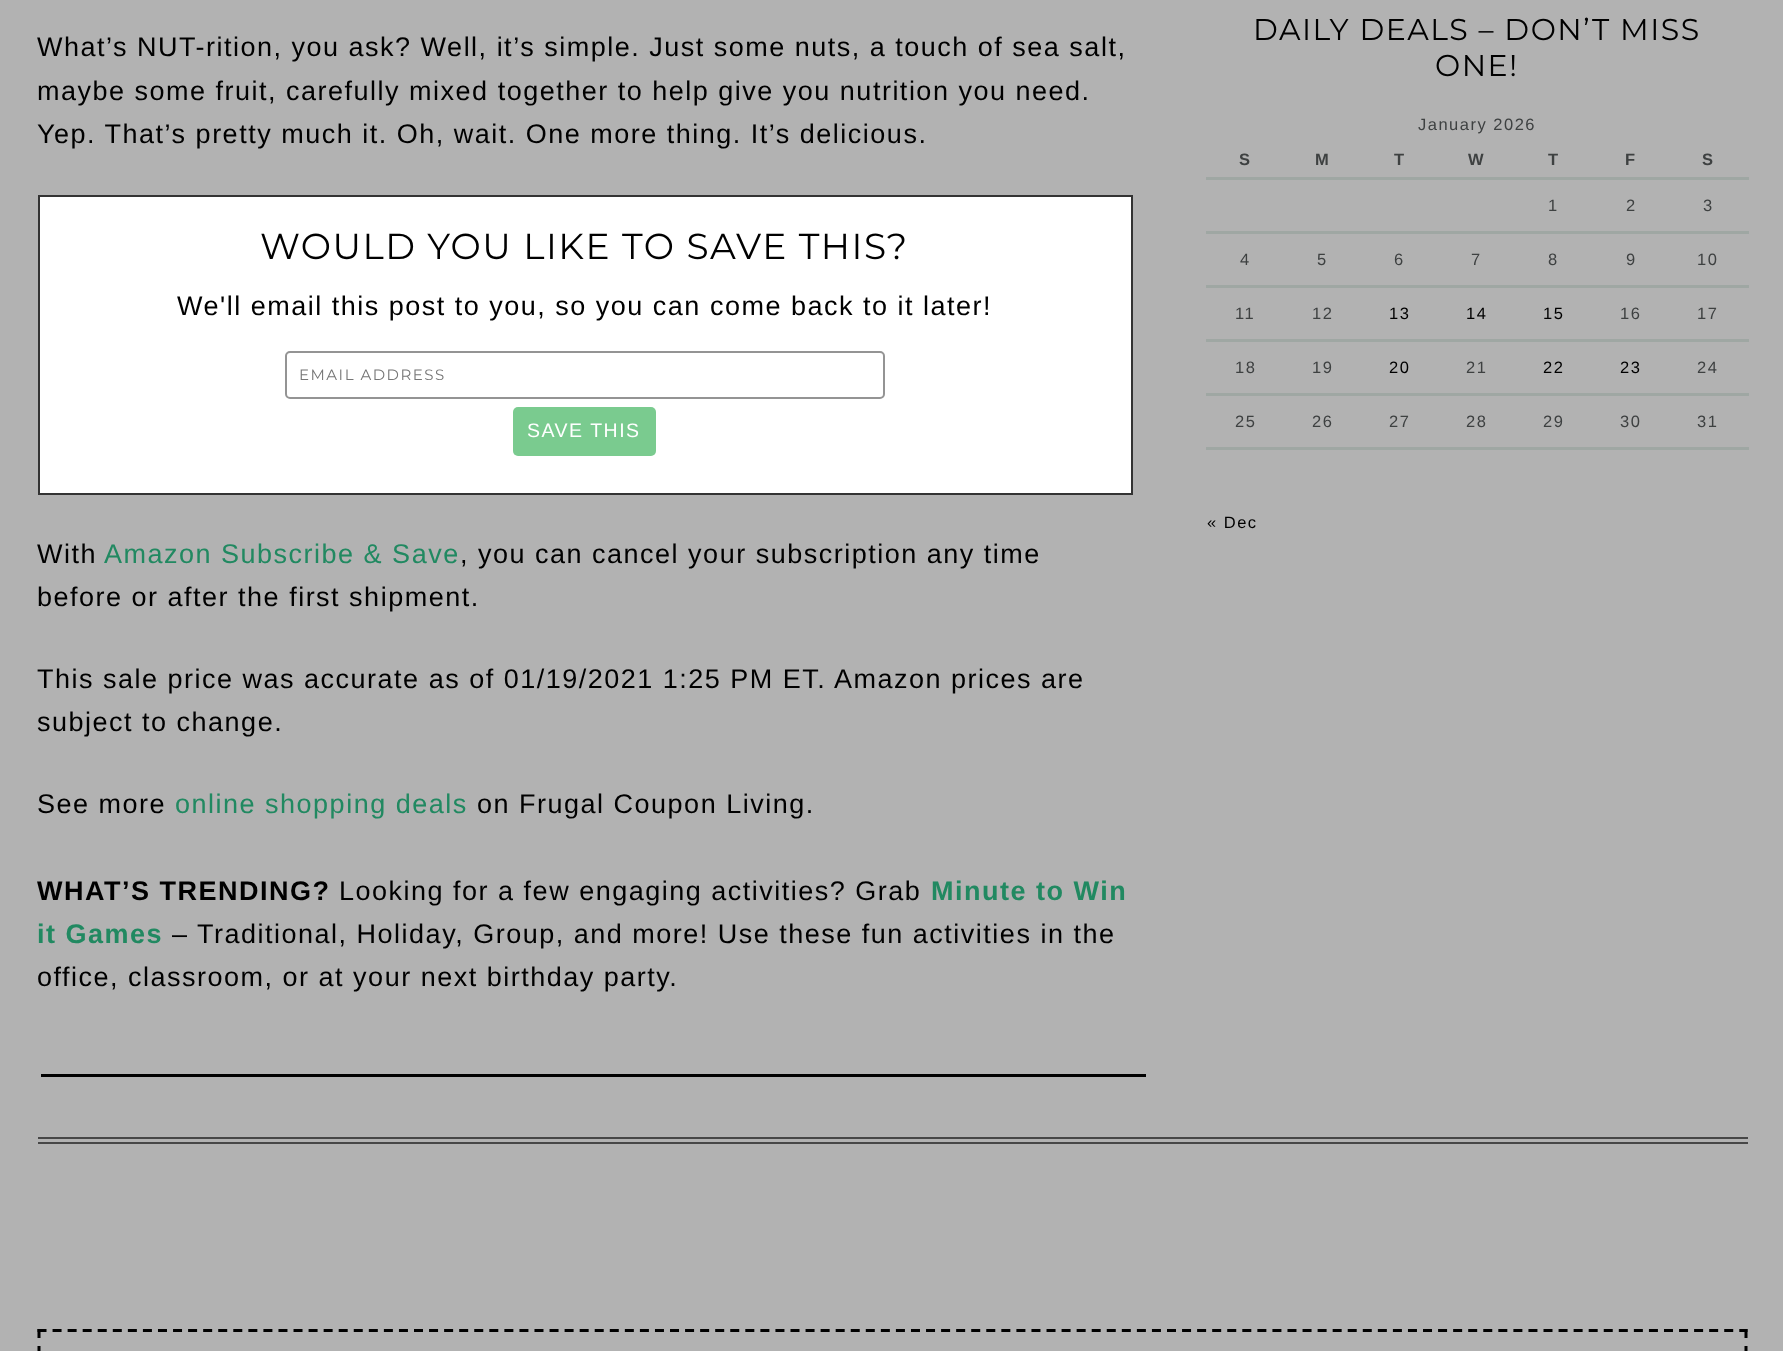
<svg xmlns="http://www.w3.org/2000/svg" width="1783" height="1351">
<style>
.a{font:27px Liberation Sans;letter-spacing:1.5px;fill:#000}
.b{font:27px Liberation Sans;letter-spacing:1.5px;fill:#30c48b}
.c{font:bold 27px Liberation Sans;letter-spacing:1.5px;fill:#000}
.d{font:bold 27px Liberation Sans;letter-spacing:1.5px;fill:#30c48b}
.e{font:100 30px Montserrat;letter-spacing:1.5px;fill:#000}
.f{font:16.5px Liberation Sans;letter-spacing:1.5px;fill:#595d5e}
.g{font:bold 16.5px Liberation Sans;letter-spacing:1.5px;fill:#595d5e}
.h{font:16.5px Liberation Sans;letter-spacing:1.5px;fill:#000}
.i{font:19.5px Liberation Sans;letter-spacing:1.5px;fill:#fff}
.j{font:100 15px Montserrat;letter-spacing:1.5px;fill:#767676}
.k{font:100 36px Montserrat;letter-spacing:1.5px;fill:#000}
</style>
<rect width="100%" height="100%" fill="#fff"/>
<path fill="#000" d="M41 1074h1105v3H41z"/>
<path fill="#e4efea" d="M1206 447h543v3H1206z"/>
<path fill="#e4efea" d="M1206 177h543v3H1206z"/>
<path fill="#e4efea" d="M1206 231h543v3H1206z"/>
<path fill="#e4efea" d="M1206 285h543v3H1206z"/>
<path fill="#e4efea" d="M1206 339h543v3H1206z"/>
<path fill="#e4efea" d="M1206 393h543v3H1206z"/>
<path fill="#666" d="M38 1137h1710v2H38z"/>
<path fill="#666" d="M38 1142h1710v2H38z"/>
<path fill="none" stroke="#000" stroke-width="3" stroke-dasharray="9 6.06" d="M37.5 1330.5h1710"/>
<path fill="none" stroke="#000" stroke-width="3" stroke-dasharray="9 8" d="M1746 1329v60"/>
<path fill="none" stroke="#000" stroke-width="3" stroke-dasharray="9 8" d="M39 1329v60"/>
<text class="a" x="37" y="56">What’s NUT-rition, you ask? Well, it’s simple. Just some nuts, a touch of sea salt,</text>
<text class="a" x="37" y="100">maybe some fruit, carefully mixed together to help give you nutrition you need.</text>
<text class="a" x="37" y="143">Yep. That’s pretty much it. Oh, wait. One more thing. It’s delicious.</text>
<text class="a" x="37" y="563">With</text>
<text class="b" x="104" y="563">Amazon Subscribe &amp; Save</text>
<text class="a" x="460" y="563">, you can cancel your subscription any time</text>
<text class="a" x="37" y="606">before or after the first shipment.</text>
<text class="a" x="37" y="688">This sale price was accurate as of 01/19/2021 1:25 PM ET. Amazon prices are</text>
<text class="a" x="37" y="731">subject to change.</text>
<text class="a" x="37" y="813">See more</text>
<text class="b" x="175" y="813">online shopping deals</text>
<text class="a" x="477" y="813">on Frugal Coupon Living.</text>
<text class="c" x="37" y="900">WHAT’S TRENDING?</text>
<text class="a" x="339" y="900">Looking for a few engaging activities? Grab</text>
<text class="d" x="931" y="900">Minute to Win</text>
<text class="d" x="37" y="943">it Games</text>
<text class="a" x="172" y="943">– Traditional, Holiday, Group, and more! Use these fun activities in the</text>
<text class="a" x="37" y="986">office, classroom, or at your next birthday party.</text>
<text class="e" x="1253" y="40">DAILY DEALS – DON’T MISS</text>
<text class="e" x="1435" y="76">ONE!</text>
<text class="f" x="1418" y="130">January 2026</text>
<text class="g" x="1239" y="165">S</text>
<text class="g" x="1315" y="165">M</text>
<text class="g" x="1394" y="165">T</text>
<text class="g" x="1468" y="165">W</text>
<text class="g" x="1548" y="165">T</text>
<text class="g" x="1625" y="165">F</text>
<text class="g" x="1702" y="165">S</text>
<text class="f" x="1548" y="211">1</text>
<text class="f" x="1626" y="211">2</text>
<text class="f" x="1703" y="211">3</text>
<text class="f" x="1240" y="265">4</text>
<text class="f" x="1317" y="265">5</text>
<text class="f" x="1394" y="265">6</text>
<text class="f" x="1471" y="265">7</text>
<text class="f" x="1548" y="265">8</text>
<text class="f" x="1626" y="265">9</text>
<text class="f" x="1697" y="265">10</text>
<text class="f" x="1235" y="319">11</text>
<text class="f" x="1312" y="319">12</text>
<text class="h" x="1389" y="319">13</text>
<text class="h" x="1466" y="319">14</text>
<text class="h" x="1543" y="319">15</text>
<text class="f" x="1620" y="319">16</text>
<text class="f" x="1697" y="319">17</text>
<text class="f" x="1235" y="373">18</text>
<text class="f" x="1312" y="373">19</text>
<text class="h" x="1389" y="373">20</text>
<text class="f" x="1466" y="373">21</text>
<text class="h" x="1543" y="373">22</text>
<text class="h" x="1620" y="373">23</text>
<text class="f" x="1697" y="373">24</text>
<text class="f" x="1235" y="427">25</text>
<text class="f" x="1312" y="427">26</text>
<text class="f" x="1389" y="427">27</text>
<text class="f" x="1466" y="427">28</text>
<text class="f" x="1543" y="427">29</text>
<text class="f" x="1620" y="427">30</text>
<text class="f" x="1697" y="427">31</text>
<text class="h" x="1207" y="528">« Dec</text>
<path fill="none" stroke="#0000004d" stroke-width="1784" d="M-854 -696h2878v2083H-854z"/>
<path fill="none" stroke="#333" stroke-width="2" d="M39 196h1093v298H39z"/>
<rect fill="#7acb8f" x="513" y="407" width="143" height="49" rx="5"/>
<text class="i" x="527" y="437">SAVE THIS</text>
<rect fill="none" stroke="#949494" stroke-width="2" x="286" y="352" width="598" height="46" rx="4"/>
<text class="j" x="299" y="380">EMAIL ADDRESS</text>
<text class="a" x="177" y="315">We'll email this post to you, so you can come back to it later!</text>
<text class="k" x="260" y="259">WOULD YOU LIKE TO SAVE THIS?</text>
</svg>
